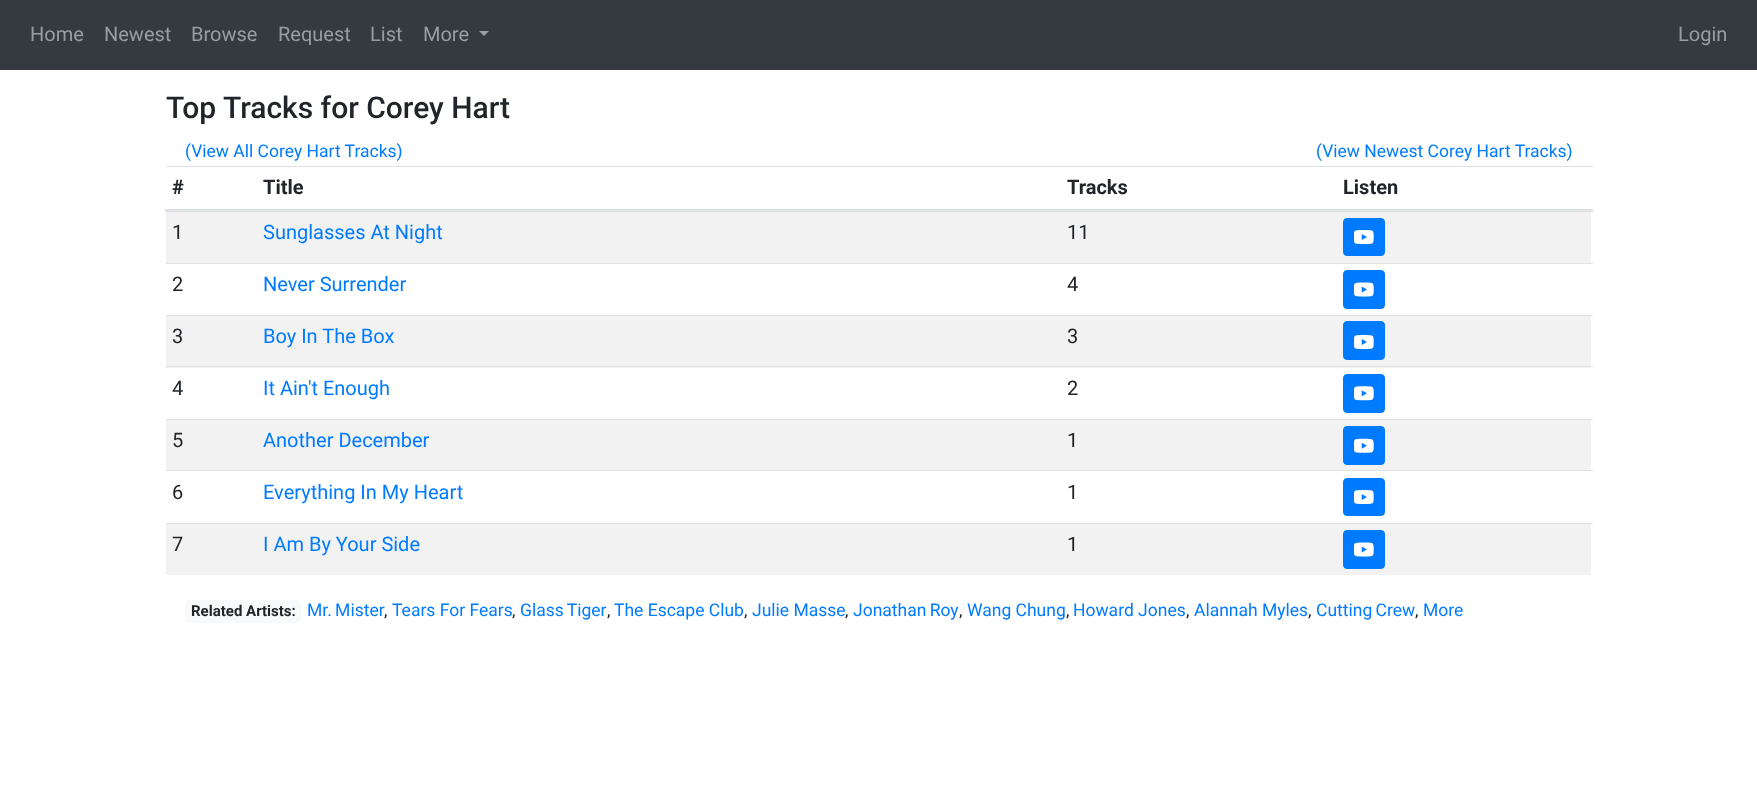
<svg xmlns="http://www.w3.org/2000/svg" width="1757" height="792">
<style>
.a{font:20px Roboto;fill:#9a9da0}
.b{font:500 30px Roboto;fill:#212529}
.c{font:17.5px Roboto;fill:#007bff}
.d{font:bold 20px Roboto;fill:#212529}
.e{font:20px Roboto;fill:#212529}
.f{font:20px Roboto;fill:#007bff}
.g{font:bold 15px Roboto;fill:#212529}
.h{font:17.5px Roboto;fill:#212529}
</style>
<rect width="100%" height="100%" fill="#fff"/>
<path fill="#343a40" d="M0 0h1757v70H0z"/>
<path fill="#9a9da0" d="M479 31h10l-5 5z"/>
<path fill="#dee2e6" d="M166 166h1427v1H166z"/>
<path fill="#dee2e6" d="M165 209h1428v3H165z"/>
<path fill="#f2f2f2" d="M166 212h1425v51H166z"/>
<rect fill="#007bff" stroke="#007bff" x="1343.5" y="218.5" width="41" height="37" rx="3.5"/>
<image href="1.png" x="1354" y="230" width="20" height="15"/>
<path fill="#dee2e6" d="M166 263h1427v1H166z"/>
<rect fill="#007bff" stroke="#007bff" x="1343.5" y="270.5" width="41" height="38" rx="3.5"/>
<image href="2.png" x="1354" y="282" width="20" height="15"/>
<path fill="#f2f2f2" d="M166 316h1425v52H166z"/>
<path fill="#dee2e6" d="M166 315h1427v1H166z"/>
<rect fill="#007bff" stroke="#007bff" x="1343.5" y="321.5" width="41" height="38" rx="3.5"/>
<image href="1.png" x="1354" y="335" width="20" height="15"/>
<path fill="#dee2e6" d="M166 366h1427v1H166z"/>
<rect fill="#007bff" stroke="#007bff" x="1343.5" y="374.5" width="41" height="38" rx="3.5"/>
<image href="3.png" x="1354" y="386" width="20" height="15"/>
<path fill="#f2f2f2" d="M166 420h1425v50H166z"/>
<path fill="#dee2e6" d="M166 419h1427v1H166z"/>
<rect fill="#007bff" stroke="#007bff" x="1343.5" y="426.5" width="41" height="38" rx="3.5"/>
<image href="4.png" x="1354" y="438" width="20" height="15"/>
<path fill="#dee2e6" d="M166 470h1427v1H166z"/>
<rect fill="#007bff" stroke="#007bff" x="1343.5" y="478.5" width="41" height="37" rx="3.5"/>
<image href="1.png" x="1354" y="490" width="20" height="15"/>
<path fill="#f2f2f2" d="M166 524h1425v51H166z"/>
<path fill="#dee2e6" d="M166 523h1427v1H166z"/>
<rect fill="#007bff" stroke="#007bff" x="1343.5" y="530.5" width="41" height="38" rx="3.5"/>
<image href="2.png" x="1354" y="542" width="20" height="15"/>
<rect fill="#f8f9fa" x="185" y="600" width="116" height="23" rx="5"/>
<text class="a" x="30" y="41">Home</text>
<text class="a" x="104" y="41">Newest</text>
<text class="a" x="191" y="41">Browse</text>
<text class="a" x="278" y="41">Request</text>
<text class="a" x="370" y="41">List</text>
<text class="a" x="423" y="41">More</text>
<text class="a" x="1678" y="41">Login</text>
<text class="b" x="166" y="118">Top Tracks for Corey Hart</text>
<text class="c" x="185" y="157">(View All Corey Hart Tracks)</text>
<text class="c" x="1316" y="157">(View Newest Corey Hart Tracks)</text>
<text class="d" x="172" y="194">#</text>
<text class="d" x="263" y="194">Title</text>
<text class="d" x="1067" y="194">Tracks</text>
<text class="d" x="1343" y="194">Listen</text>
<text class="e" x="172" y="239">1</text>
<text class="f" x="263" y="239">Sunglasses At Night</text>
<text class="e" x="1067" y="239">11</text>
<text class="e" x="172" y="291">2</text>
<text class="f" x="263" y="291">Never Surrender</text>
<text class="e" x="1067" y="291">4</text>
<text class="e" x="172" y="343">3</text>
<text class="f" x="263" y="343">Boy In The Box</text>
<text class="e" x="1067" y="343">3</text>
<text class="e" x="172" y="395">4</text>
<text class="f" x="263" y="395">It Ain't Enough</text>
<text class="e" x="1067" y="395">2</text>
<text class="e" x="172" y="447">5</text>
<text class="f" x="263" y="447">Another December</text>
<text class="e" x="1067" y="447">1</text>
<text class="e" x="172" y="499">6</text>
<text class="f" x="263" y="499">Everything In My Heart</text>
<text class="e" x="1067" y="499">1</text>
<text class="e" x="172" y="551">7</text>
<text class="f" x="263" y="551">I Am By Your Side</text>
<text class="e" x="1067" y="551">1</text>
<text class="g" x="191" y="616">Related Artists:</text>
<text class="c" x="307" y="616" word-spacing="-1">Mr. Mister</text>
<text class="h" x="384" y="616">,</text>
<text class="c" x="392" y="616">Tears For Fears</text>
<text class="h" x="512" y="616">,</text>
<text class="c" x="520" y="616" word-spacing="-1">Glass Tiger</text>
<text class="h" x="607" y="616">,</text>
<text class="c" x="614" y="616">The Escape Club</text>
<text class="h" x="744" y="616">,</text>
<text class="c" x="752" y="616">Julie Masse</text>
<text class="h" x="845" y="616">,</text>
<text class="c" x="853" y="616" word-spacing="-1">Jonathan Roy</text>
<text class="h" x="959" y="616">,</text>
<text class="c" x="967" y="616">Wang Chung</text>
<text class="h" x="1066" y="616">,</text>
<text class="c" x="1073" y="616">Howard Jones</text>
<text class="h" x="1186" y="616">,</text>
<text class="c" x="1194" y="616">Alannah Myles</text>
<text class="h" x="1308" y="616">,</text>
<text class="c" x="1316" y="616" word-spacing="-1">Cutting Crew</text>
<text class="h" x="1415" y="616">,</text>
<text class="c" x="1423" y="616">More</text>
</svg>
